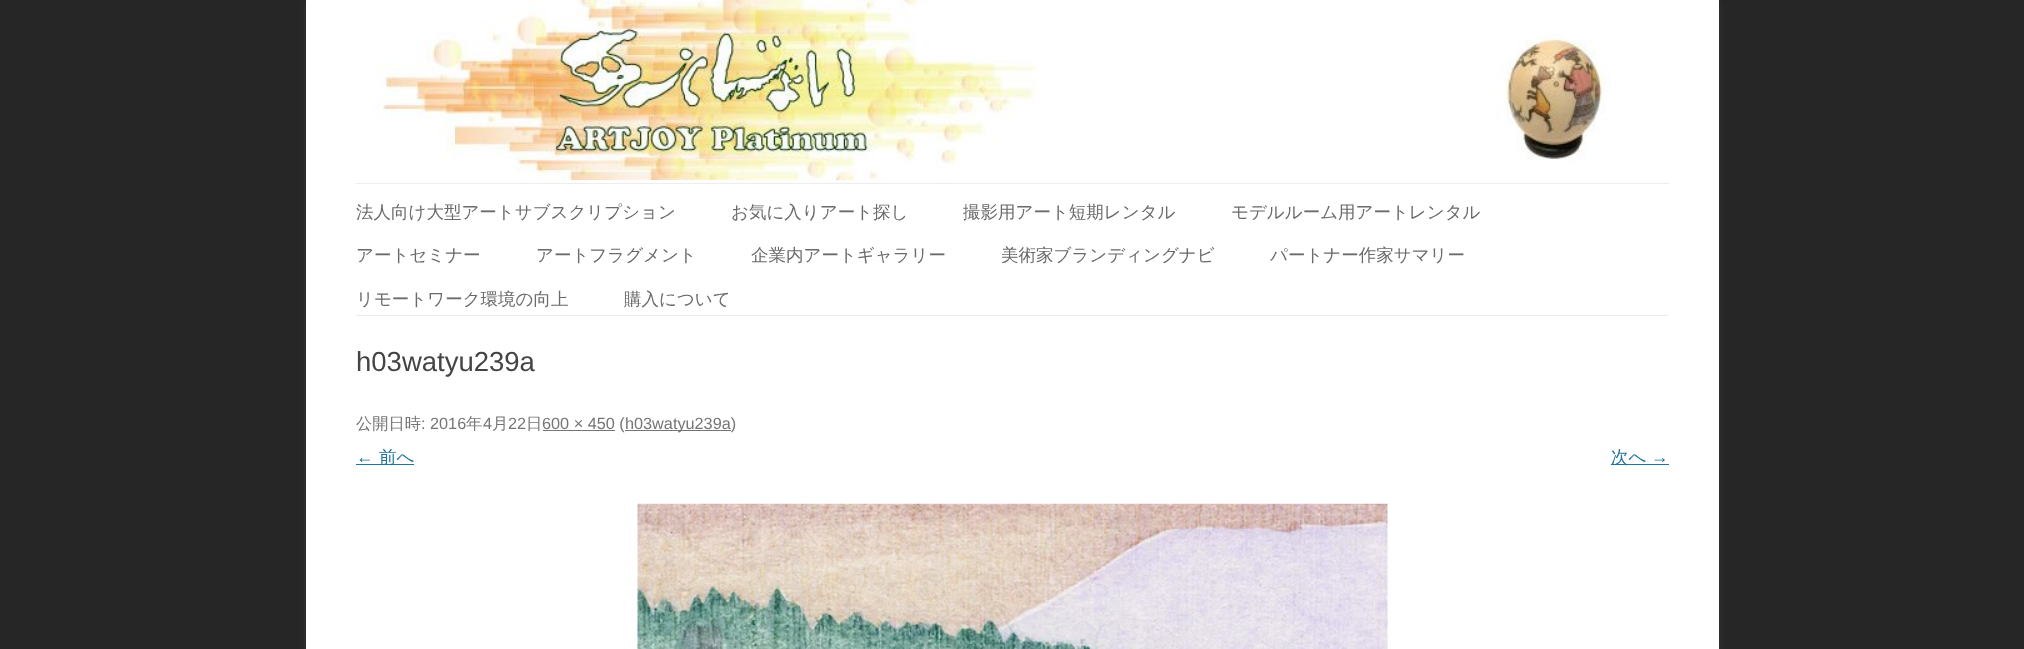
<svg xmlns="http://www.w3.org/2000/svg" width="2024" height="649">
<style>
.a{font:500 17.5px WenQuanYi Zen Hei;fill:#6a6a6a}
.b{font:27.5px Liberation Sans;fill:#444}
.c{font:500 16.25px WenQuanYi Zen Hei;fill:#757575}
.d{font:16.25px Liberation Sans;fill:#757575}
.e{font:17.5px Liberation Sans;fill:#21759b}
.f{font:500 17.5px WenQuanYi Zen Hei;fill:#21759b}
</style>
<rect width="100%" height="100%" fill="#262626"/>
<path fill="#6464644d" filter="blur(4px)" d="M306 3h1413v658H306z"/>
<path fill="#fff" d="M306 0h1413v649H306z"/>
<image href="1.png" x="376" y="0" width="1235" height="180"/>
<path fill="#ededed" d="M356 183h1313v1H356z"/>
<path fill="#ededed" d="M356 315h1313v1H356z"/>
<path fill="#757575" d="M543 430h72v1H543z"/>
<path fill="#757575" d="M625 430h106v1H625z"/>
<path fill="#21759b" d="M356 464h58v1H356z"/>
<path fill="#21759b" d="M1611 464h58v1H1611z"/>
<image href="2.png" x="637" y="503" width="751" height="146"/>
<text class="a" x="356" y="218">法人向け大型アートサブスクリプション</text>
<text class="a" x="731" y="218">お気に入りアート探し</text>
<text class="a" x="963" y="218">撮影用アート短期レンタル</text>
<text class="a" x="1231" y="218">モデルルーム用アートレンタル</text>
<text class="a" x="356" y="261">アートセミナー</text>
<text class="a" x="536" y="261">アートフラグメント</text>
<text class="a" x="751" y="261">企業内アートギャラリー</text>
<text class="a" x="1001" y="261">美術家ブランディングナビ</text>
<text class="a" x="1270" y="261">パートナー作家サマリー</text>
<text class="a" x="356" y="305">リモートワーク環境の向上</text>
<text class="a" x="624" y="305">購入について</text>
<text class="b" x="356" y="371">h03watyu239a</text>
<text class="c" x="356" y="429">公開日時</text>
<text class="d" x="421" y="429">: 2016</text>
<text class="c" x="466" y="429">年</text>
<text class="d" x="483" y="429">4</text>
<text class="c" x="492" y="429">月</text>
<text class="d" x="508" y="429">22</text>
<text class="c" x="526" y="429">日</text>
<text class="d" x="542" y="429">600 × 450 (</text>
<text class="d" x="625" y="429">h03watyu239a)</text>
<text class="e" x="356" y="463">←</text>
<text class="f" x="379" y="463">前へ</text>
<text class="f" x="1611" y="463">次へ</text>
<text class="e" x="1651" y="463">→</text>
</svg>
